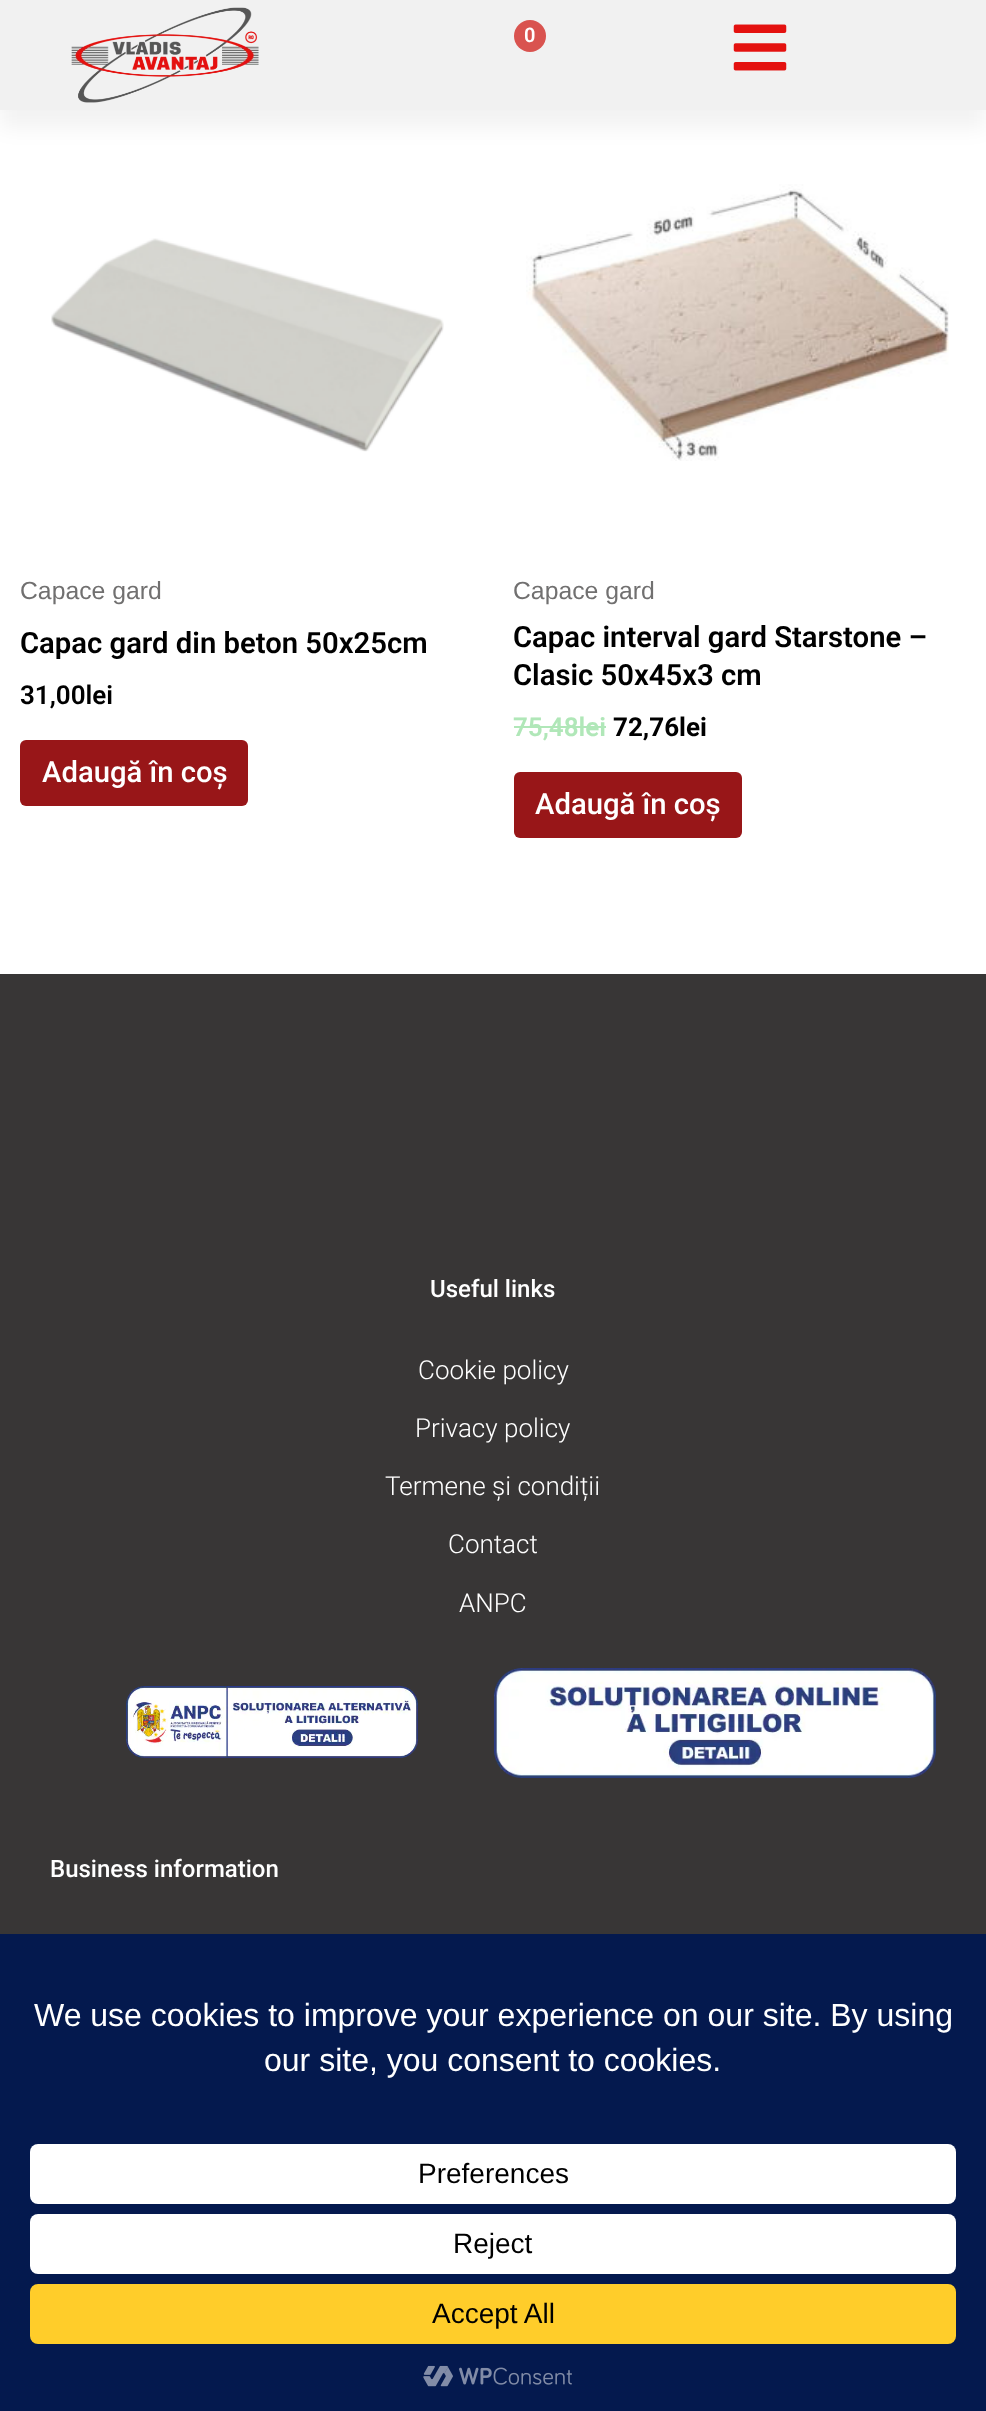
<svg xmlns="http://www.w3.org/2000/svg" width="986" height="2411">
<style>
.a{font:600 20px Roboto;fill:#fff}
.b{font:24.75px Liberation Sans;fill:#717070}
.c{font:600 29.25px Roboto;fill:#000}
.d{font:600 26px Roboto;fill:#000}
.e{font:500 29.25px Roboto;fill:#fff}
.f{font:600 26px Roboto;fill:#b0e7b8}
.g{font:bold 26px Roboto;fill:#000}
.h{font:500 24px Roboto;fill:#fff}
.i{font:300 26px Roboto;fill:#fff}
.j{font:32px Liberation Sans;fill:#fff}
.k{font:28px Liberation Sans;fill:#000}
</style>
<rect width="100%" height="100%" fill="#fff"/>
<path fill="#0000000d" filter="blur(10px)" d="M0 18h986v110H0z"/>
<path fill="#f1f1f1" d="M0 0h986v110H0z"/>
<image href="1.png" x="71" y="7" width="188" height="96"/>
<circle fill="#d9534f" cx="530" cy="36" r="16"/>
<image href="2.png" x="733" y="24" width="54" height="47"/>
<image href="3.png" x="51" y="238" width="393" height="214"/>
<rect fill="#981618" x="20" y="740" width="228" height="66" rx="6"/>
<image href="4.png" x="526" y="184" width="423" height="277"/>
<path fill="#b0e7b8" d="M514 726h92v2H514z"/>
<rect fill="#981618" x="514" y="772" width="228" height="66" rx="6"/>
<path fill="#383636" d="M0 974h986v960H0z"/>
<image href="5.png" x="126" y="1686" width="292" height="72"/>
<image href="6.png" x="494" y="1668" width="442" height="110"/>
<path fill="#04194e" d="M0 1934h986v477H0z"/>
<rect fill="#fff" x="30" y="2144" width="926" height="60" rx="8"/>
<rect fill="#fff" x="30" y="2214" width="926" height="60" rx="8"/>
<rect fill="#ffcd2a" x="30" y="2284" width="926" height="60" rx="8"/>
<image href="7.png" x="423" y="2365" width="149" height="22"/>
<text class="a" x="524" y="42">0</text>
<text class="b" x="20" y="599">Capace gard</text>
<text class="c" x="20" y="653">Capac gard din beton 50x25cm</text>
<text class="d" x="20" y="704">31,00lei</text>
<text class="e" x="42" y="782">Adaugă în coș</text>
<text class="b" x="513" y="599">Capace gard</text>
<text class="c" x="513" y="647">Capac interval gard Starstone –</text>
<text class="c" x="513" y="685">Clasic 50x45x3 cm</text>
<text class="f" x="513" y="736">75,48lei</text>
<text class="g" x="613" y="736">72,76lei</text>
<text class="e" x="535" y="814">Adaugă în coș</text>
<text class="h" x="430" y="1297">Useful links</text>
<text class="i" x="418" y="1379">Cookie policy</text>
<text class="i" x="415" y="1437">Privacy policy</text>
<text class="i" x="385" y="1495">Termene și condiții</text>
<text class="i" x="448" y="1553">Contact</text>
<text class="i" x="459" y="1612">ANPC</text>
<text class="h" x="50" y="1877">Business information</text>
<text class="j" x="34" y="2026">We use cookies to improve your experience on our site. By using</text>
<text class="j" x="264" y="2071">our site, you consent to cookies.</text>
<text class="k" x="418" y="2183">Preferences</text>
<text class="k" x="453" y="2253">Reject</text>
<text class="k" x="432" y="2323">Accept All</text>
</svg>
